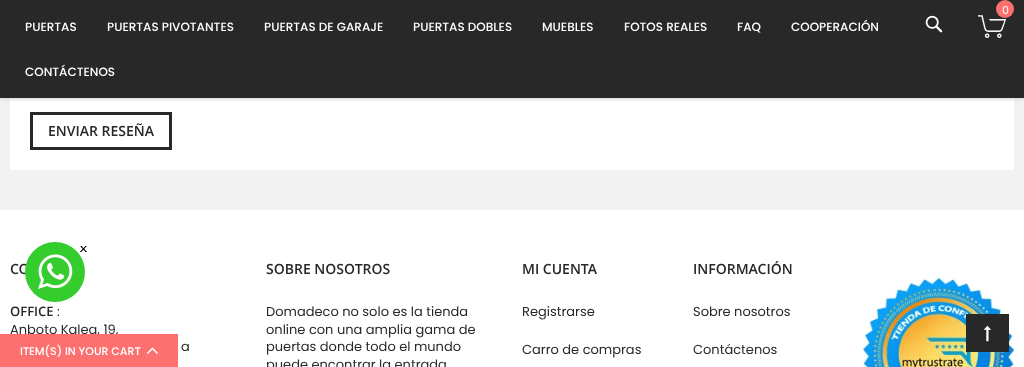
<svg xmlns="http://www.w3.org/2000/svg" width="1024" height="367">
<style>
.a{font:11px Poppins;fill:#fff}
.b{font:500 12px Poppins;fill:#fff}
.c{font:600 14px Open Sans;fill:#282828}
.d{font:600 13px Open Sans;fill:#282828}
.e{font:13px Poppins;fill:#282828}
.f{font:500 11px Poppins;fill:#fff}
</style>
<rect width="100%" height="100%" fill="#f2f2f2"/>
<path fill="#fff" d="M10 98h1004v72H10z"/>
<path fill="#bdbdbd" filter="blur(2.5px)" d="M0 0h1024v98H0z"/>
<path fill="#282828" d="M0 0h1024v98H0z"/>
<image href="1.png" x="978" y="15" width="29" height="23"/>
<circle fill="#fc7070" cx="1005" cy="9" r="9"/>
<image href="2.png" x="925" y="15" width="18" height="18"/>
<path fill="none" stroke="#282828" stroke-width="3" d="M31.5 113.5h139v35H31.5z"/>
<path fill="#fff" d="M0 210h1024v157H0z"/>
<image href="5.png" x="863" y="273" width="151" height="94"/>
<path fill="#282828" d="M966 314h43v38H966z"/>
<image href="6.png" x="984" y="325" width="7" height="17"/>
<text class="a" x="1002" y="14">0</text>
<text class="b" x="25" y="31">PUERTAS</text>
<text class="b" x="107" y="31">PUERTAS PIVOTANTES</text>
<text class="b" x="264" y="31">PUERTAS DE GARAJE</text>
<text class="b" x="413" y="31">PUERTAS DOBLES</text>
<text class="b" x="542" y="31">MUEBLES</text>
<text class="b" x="624" y="31">FOTOS REALES</text>
<text class="b" x="737" y="31">FAQ</text>
<text class="b" x="791" y="31">COOPERACIÓN</text>
<text class="b" x="25" y="76">CONTÁCTENOS</text>
<text class="c" x="48" y="136">ENVIAR RESEÑA</text>
<text class="c" x="10" y="274">CO</text>
<circle fill="#35cc2d" cx="55" cy="272" r="30"/>
<image href="4.png" x="80" y="246" width="7" height="6"/>
<image href="3.png" x="38" y="254" width="35" height="35"/>
<text class="d" x="10" y="316">OFFICE</text>
<text class="e" x="57" y="316">:</text>
<text class="e" x="10" y="334">Anboto Kalea, 19,</text>
<text class="e" x="181" y="351">a</text>
<text class="c" x="266" y="274">SOBRE NOSOTROS</text>
<text class="e" x="266" y="316">Domadeco no solo es la tienda</text>
<text class="e" x="266" y="334">online con una amplia gama de</text>
<text class="e" x="266" y="351">puertas donde todo el mundo</text>
<text class="e" x="266" y="369">puede encontrar la entrada</text>
<text class="c" x="522" y="274">MI CUENTA</text>
<text class="e" x="522" y="316">Registrarse</text>
<text class="e" x="522" y="354">Carro de compras</text>
<text class="c" x="693" y="274">INFORMACIÓN</text>
<text class="e" x="693" y="316">Sobre nosotros</text>
<text class="e" x="693" y="354">Contáctenos</text>
<path fill="#fc7070" d="M0 334h178v33H0z"/>
<text class="f" x="20" y="355">ITEM(S) IN YOUR CART</text>
<image href="7.png" x="146" y="347" width="12" height="7"/>
</svg>
